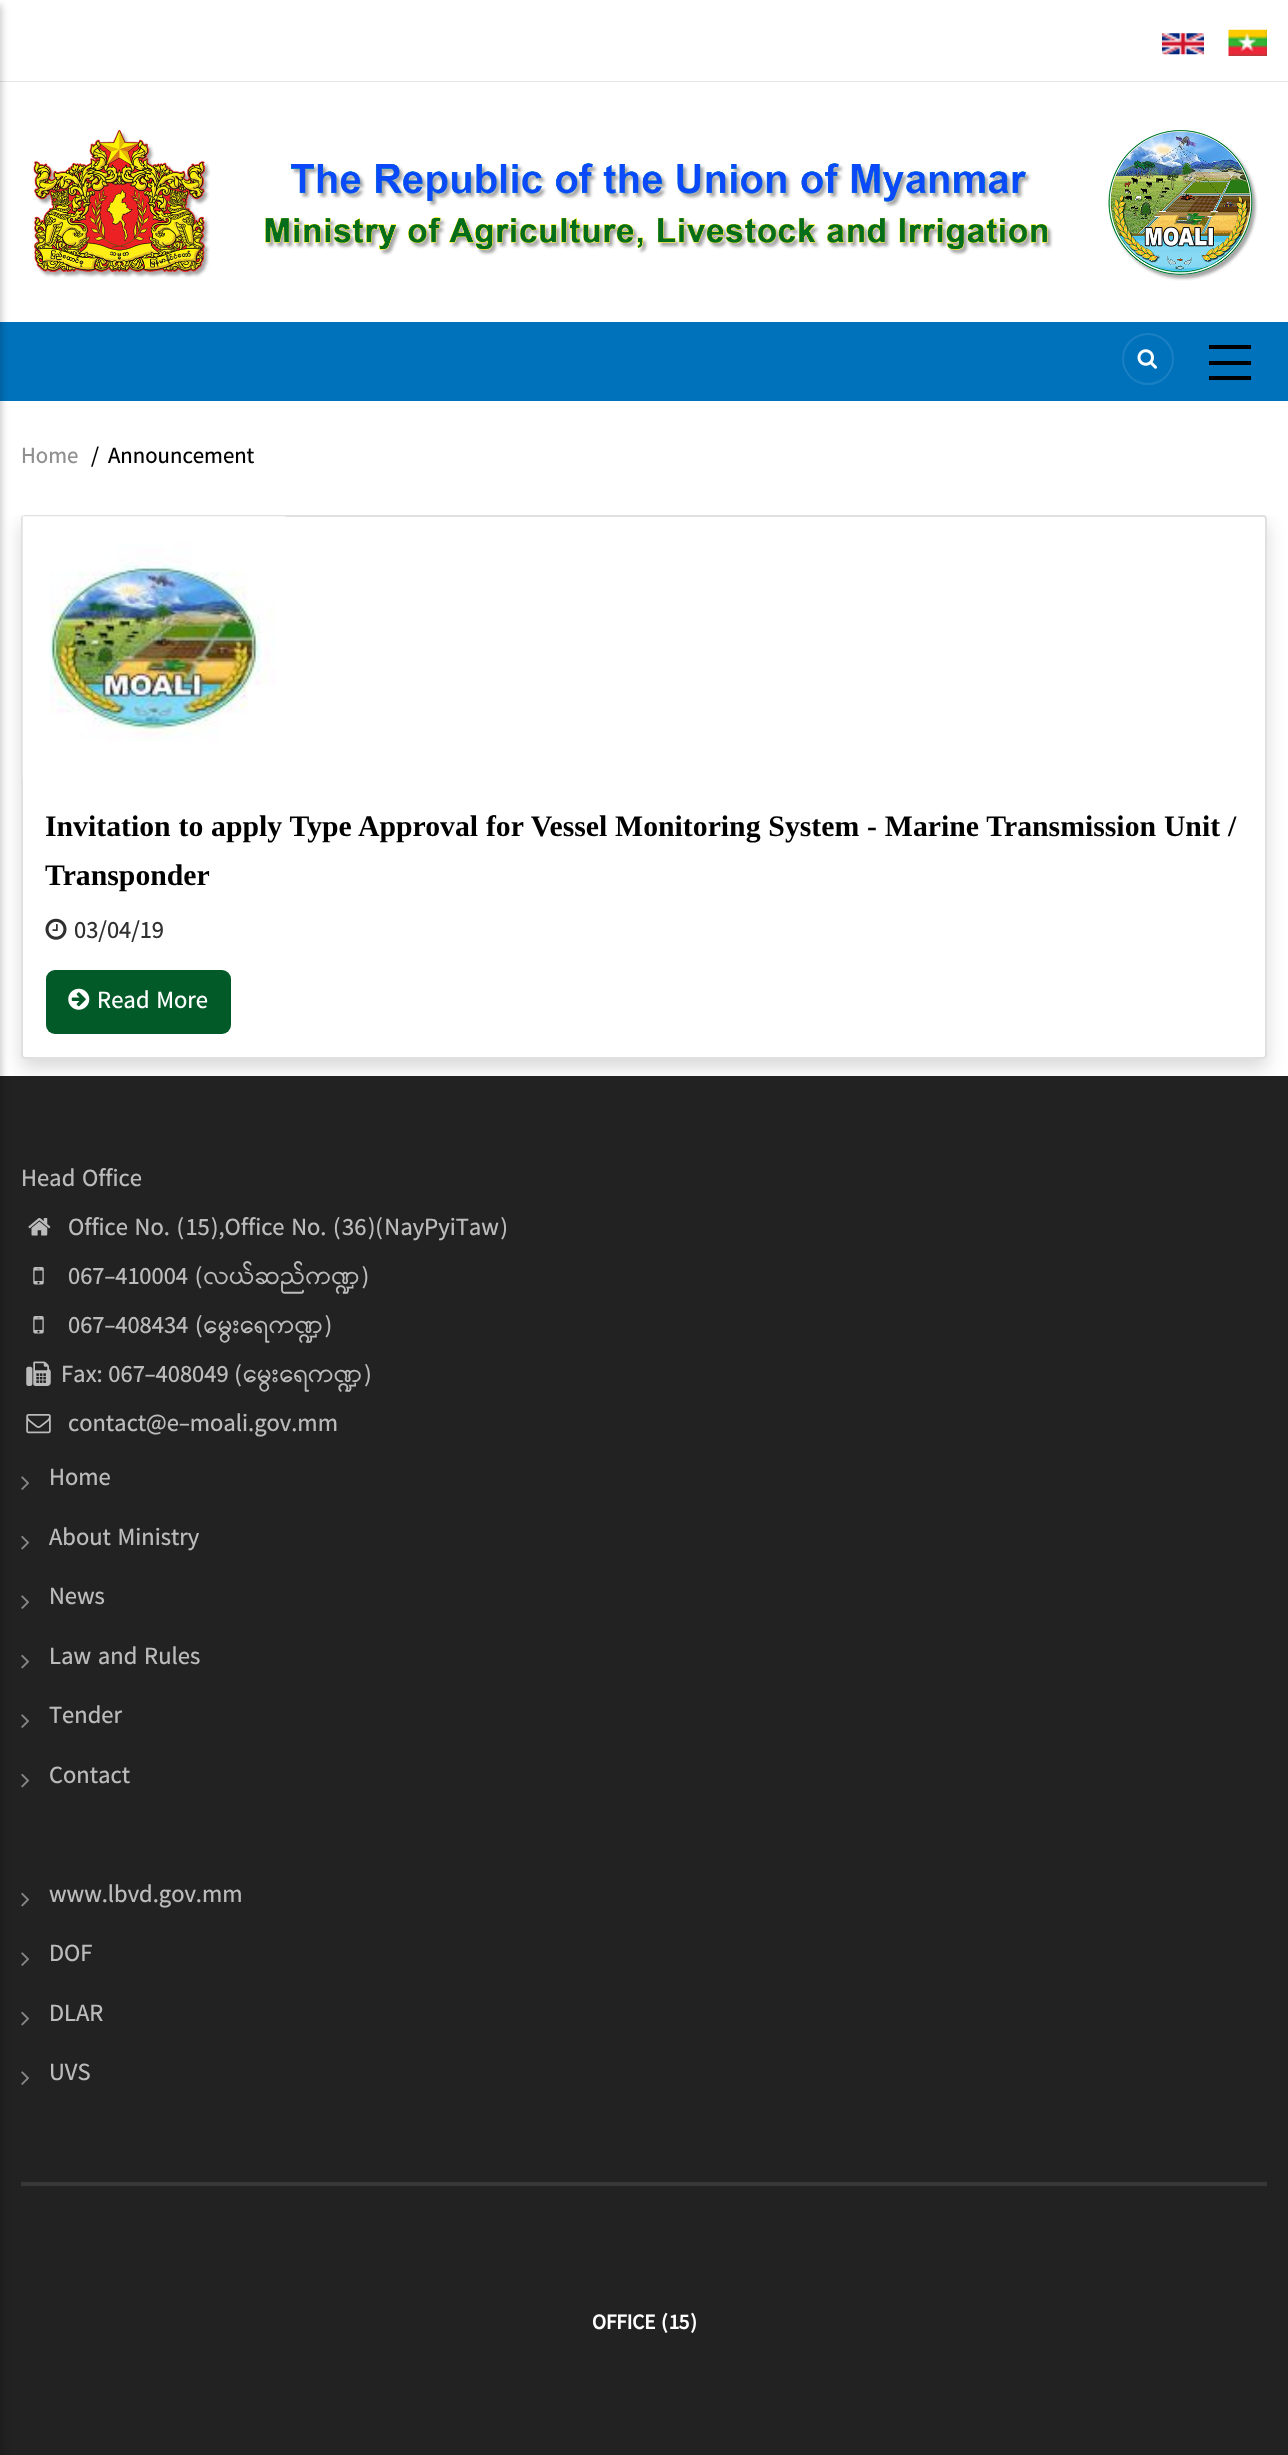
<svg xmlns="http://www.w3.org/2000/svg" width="1288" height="2455">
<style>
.a{font:22.75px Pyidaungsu;fill:#909090}
.b{font:22.75px Pyidaungsu;fill:#000}
.c{font:bold 29.75px Liberation Serif;fill:#000}
.d{font:24.5px Pyidaungsu;fill:#303030}
.e{font:24.5px Pyidaungsu;fill:#fff}
.f{font:24.5px Pyidaungsu;fill:#bbb}
.g{font:bold 21px Pyidaungsu;fill:#fff}
</style>
<defs>
<clipPath id="clip1"><path d="M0 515h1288v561H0z"/></clipPath>
</defs>
<rect width="100%" height="100%" fill="#fff"/>
<path fill="#0072bc" d="M0 322h1288v79H0z"/>
<path fill="#e6e6e6" d="M0 81h1288v1H0z"/>
<path fill="#222" d="M0 1076h1288v1379H0z"/>
<path fill="#00000033" filter="blur(3.5px)" d="M-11 5h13v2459H-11z"/>
<circle fill="none" stroke="#1a80c3" stroke-width="2" cx="1148" cy="359" r="25"/>
<image href="1.png" x="1137" y="349" width="20" height="20"/>
<path fill="#000" d="M1209 345h42v4H1209z"/>
<path fill="#000" d="M1209 361h42v4H1209z"/>
<path fill="#000" d="M1209 376h42v4H1209z"/>
<image href="2.png" x="1162" y="33" width="42" height="22"/>
<image href="3.png" x="1228" y="29" width="39" height="27"/>
<image href="4.png" x="33" y="130" width="1225" height="151"/>
<g clip-path="url(#clip1)">
<rect fill="#00000026" filter="blur(9px)" x="21" y="523" width="1246" height="545" rx="4"/>
</g>
<rect fill="#fff" x="21" y="515" width="1246" height="544" rx="4"/>
<rect fill="none" stroke="#0000001f" stroke-width="2" x="22" y="516" width="1244" height="542" rx="3"/>
<image href="5.png" x="22" y="516" width="264" height="263"/>
<image href="6.png" x="45" y="918" width="22" height="22"/>
<rect fill="#015a27" x="46" y="970" width="185" height="64" rx="9"/>
<image href="7.png" x="68" y="988" width="22" height="22"/>
<image href="8.png" x="28" y="1218" width="23" height="18"/>
<image href="9.png" x="33" y="1267" width="11" height="18"/>
<image href="9.png" x="33" y="1316" width="11" height="18"/>
<image href="10.png" x="26" y="1361" width="25" height="25"/>
<image href="11.png" x="26" y="1414" width="25" height="20"/>
<image href="12.png" x="21" y="1476" width="8" height="14"/>
<image href="13.png" x="21" y="1535" width="9" height="15"/>
<image href="12.png" x="21" y="1595" width="8" height="14"/>
<image href="13.png" x="21" y="1654" width="9" height="15"/>
<image href="12.png" x="21" y="1714" width="8" height="14"/>
<image href="13.png" x="21" y="1773" width="9" height="15"/>
<image href="13.png" x="21" y="1892" width="9" height="15"/>
<image href="12.png" x="21" y="1952" width="8" height="14"/>
<image href="13.png" x="21" y="2011" width="9" height="15"/>
<image href="12.png" x="21" y="2071" width="8" height="14"/>
<path fill="#383838" d="M21 2182h1246v4H21z"/>
<text class="a" x="21" y="463">Home</text>
<text class="b" x="91" y="463">/</text>
<text class="b" x="108" y="463">Announcement</text>
<text class="c" x="45" y="836" word-spacing="0.4">Invitation to apply Type Approval for Vessel Monitoring System - Marine Transmission Unit /</text>
<text class="c" x="45" y="885">Transponder</text>
<text class="d" x="74" y="938">03/04/19</text>
<text class="e" x="97" y="1008">Read More</text>
<text class="f" x="21" y="1186">Head Office</text>
<text class="f" x="68" y="1235">Office No. (15),Office No. (36)(NayPyiTaw)</text>
<text class="f" x="68" y="1284">067-410004 (လယ်ဆည်ကဏ္ဍ)</text>
<text class="f" x="68" y="1333">067-408434 (မွေးရေကဏ္ဍ)</text>
<text class="f" x="61" y="1382" word-spacing="-1">Fax: 067-408049 (မွေးရေကဏ္ဍ)</text>
<text class="f" x="68" y="1431">contact@e-moali.gov.mm</text>
<text class="f" x="49" y="1485">Home</text>
<text class="f" x="49" y="1545">About Ministry</text>
<text class="f" x="49" y="1604">News</text>
<text class="f" x="49" y="1664">Law and Rules</text>
<text class="f" x="49" y="1723">Tender</text>
<text class="f" x="49" y="1783">Contact</text>
<text class="f" x="49" y="1902">www.lbvd.gov.mm</text>
<text class="f" x="49" y="1961">DOF</text>
<text class="f" x="49" y="2021">DLAR</text>
<text class="f" x="49" y="2080">UVS</text>
<text class="g" x="592" y="2329">OFFICE (15)</text>
</svg>
